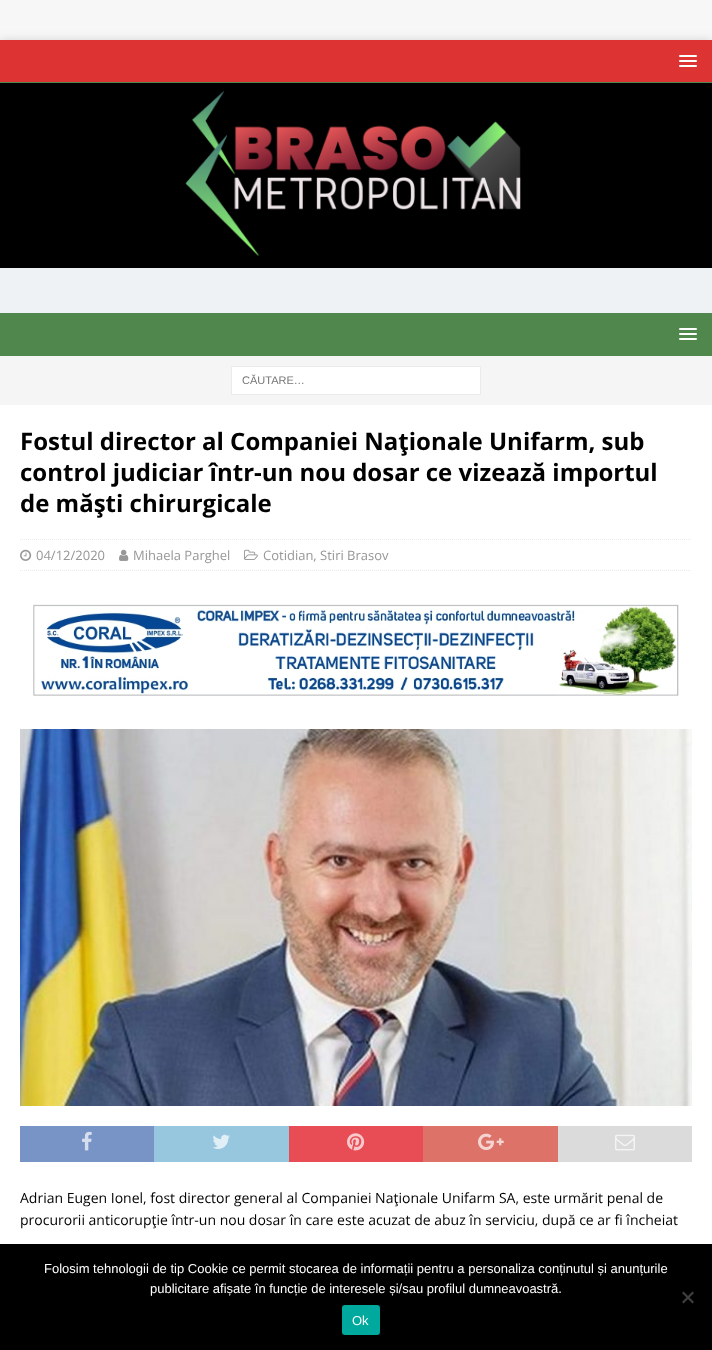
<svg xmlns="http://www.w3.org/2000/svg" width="712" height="1350">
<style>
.a{font:11px Liberation Sans;fill:#757575}
.b{font:bold 24px Open Sans;fill:#000}
.c{font:13px Open Sans;fill:#979797}
.d{font:14px Open Sans;fill:#000}
.e{font:13px Liberation Sans;fill:#fff}
</style>
<rect width="100%" height="100%" fill="#f7f7f7"/>
<path fill="#3232322b" filter="blur(5px)" d="M0 40h712v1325H0z"/>
<path fill="#d33" d="M0 40h712v42H0z"/>
<path fill="#50874d" d="M0 82h712v1H0z"/>
<rect fill="#fff" x="679" y="55" width="18" height="2" rx="1"/>
<rect fill="#fff" x="679" y="60" width="18" height="2" rx="1"/>
<rect fill="#fff" x="679" y="65" width="18" height="2" rx="1"/>
<path fill="#eff2f4" d="M0 268h712v45H0z"/>
<image href="1.png" x="0" y="83" width="712" height="185"/>
<path fill="#50874d" d="M0 313h712v43H0z"/>
<rect fill="#fff" x="679" y="328" width="18" height="2" rx="1"/>
<rect fill="#fff" x="679" y="333" width="18" height="2" rx="1"/>
<rect fill="#fff" x="679" y="338" width="18" height="2" rx="1"/>
<path fill="#f5f5f5" d="M0 356h712v49H0z"/>
<path fill="#fff" stroke="#ebebeb" d="M231.5 366.5h249v28H231.5z"/>
<path fill="#fff" d="M0 405h712v839H0z"/>
<path fill="none" stroke="#ebebeb" stroke-dasharray="1 1" d="M20 539.5h672"/>
<path fill="none" stroke="#ebebeb" stroke-dasharray="1 1" d="M20 570.5h672"/>
<image href="2.png" x="20" y="549" width="12" height="12"/>
<image href="3.png" x="119" y="549" width="10" height="12"/>
<image href="4.png" x="244" y="549" width="14" height="11"/>
<image href="5.png" x="33" y="604" width="646" height="92"/>
<image href="6.png" x="20" y="729" width="672" height="377"/>
<path fill="#7893c6" d="M20 1126h134v36H20z"/>
<image href="7.png" x="82" y="1131" width="10" height="20"/>
<path fill="#97c6df" d="M154 1126h135v36H154z"/>
<image href="8.png" x="212" y="1134" width="18" height="15"/>
<path fill="#e84d56" d="M289 1126h134v36H289z"/>
<image href="9.png" x="347" y="1133" width="18" height="18"/>
<path fill="#dc7268" d="M423 1126h135v36H423z"/>
<image href="10.png" x="478" y="1133" width="26" height="17"/>
<path fill="#dbdbdb" d="M558 1126h134v36H558z"/>
<image href="11.png" x="615" y="1134" width="20" height="17"/>
<path fill="#000" d="M0 1244h712v106H0z"/>
<path fill="#404040" d="M692.5 1291.5l1.5 1.5l-10.5 10.5l-1.5-1.5z"/>
<path fill="#404040" d="M682 1293l1.5-1.5l10.5 10.5l-1.5 1.5z"/>
<rect fill="#00a99d" x="342" y="1305" width="38" height="30" rx="3"/>
<text class="a" x="242" y="384">CĂUTARE…</text>
<text class="b" x="20" y="450">Fostul director al Companiei Naţionale Unifarm, sub</text>
<text class="b" x="20" y="481">control judiciar într-un nou dosar ce vizează importul</text>
<text class="b" x="20" y="512">de măşti chirurgicale</text>
<text class="c" x="36" y="560">04/12/2020</text>
<text class="c" x="133" y="560">Mihaela Parghel</text>
<text class="c" x="263" y="560">Cotidian, Stiri Brasov</text>
<text class="d" x="20" y="1203">Adrian Eugen Ionel, fost director general al Companiei Naţionale Unifarm SA, este urmărit penal de</text>
<text class="d" x="20" y="1225">procurorii anticorupţie într-un nou dosar în care este acuzat de abuz în serviciu, după ce ar fi încheiat</text>
<text class="e" x="44" y="1273">Folosim tehnologii de tip Cookie ce permit stocarea de informații pentru a personaliza conținutul și anunțurile</text>
<text class="e" x="150" y="1293">publicitare afișate în funcție de interesele și/sau profilul dumneavoastră.</text>
<text class="e" x="352" y="1325">Ok</text>
</svg>
